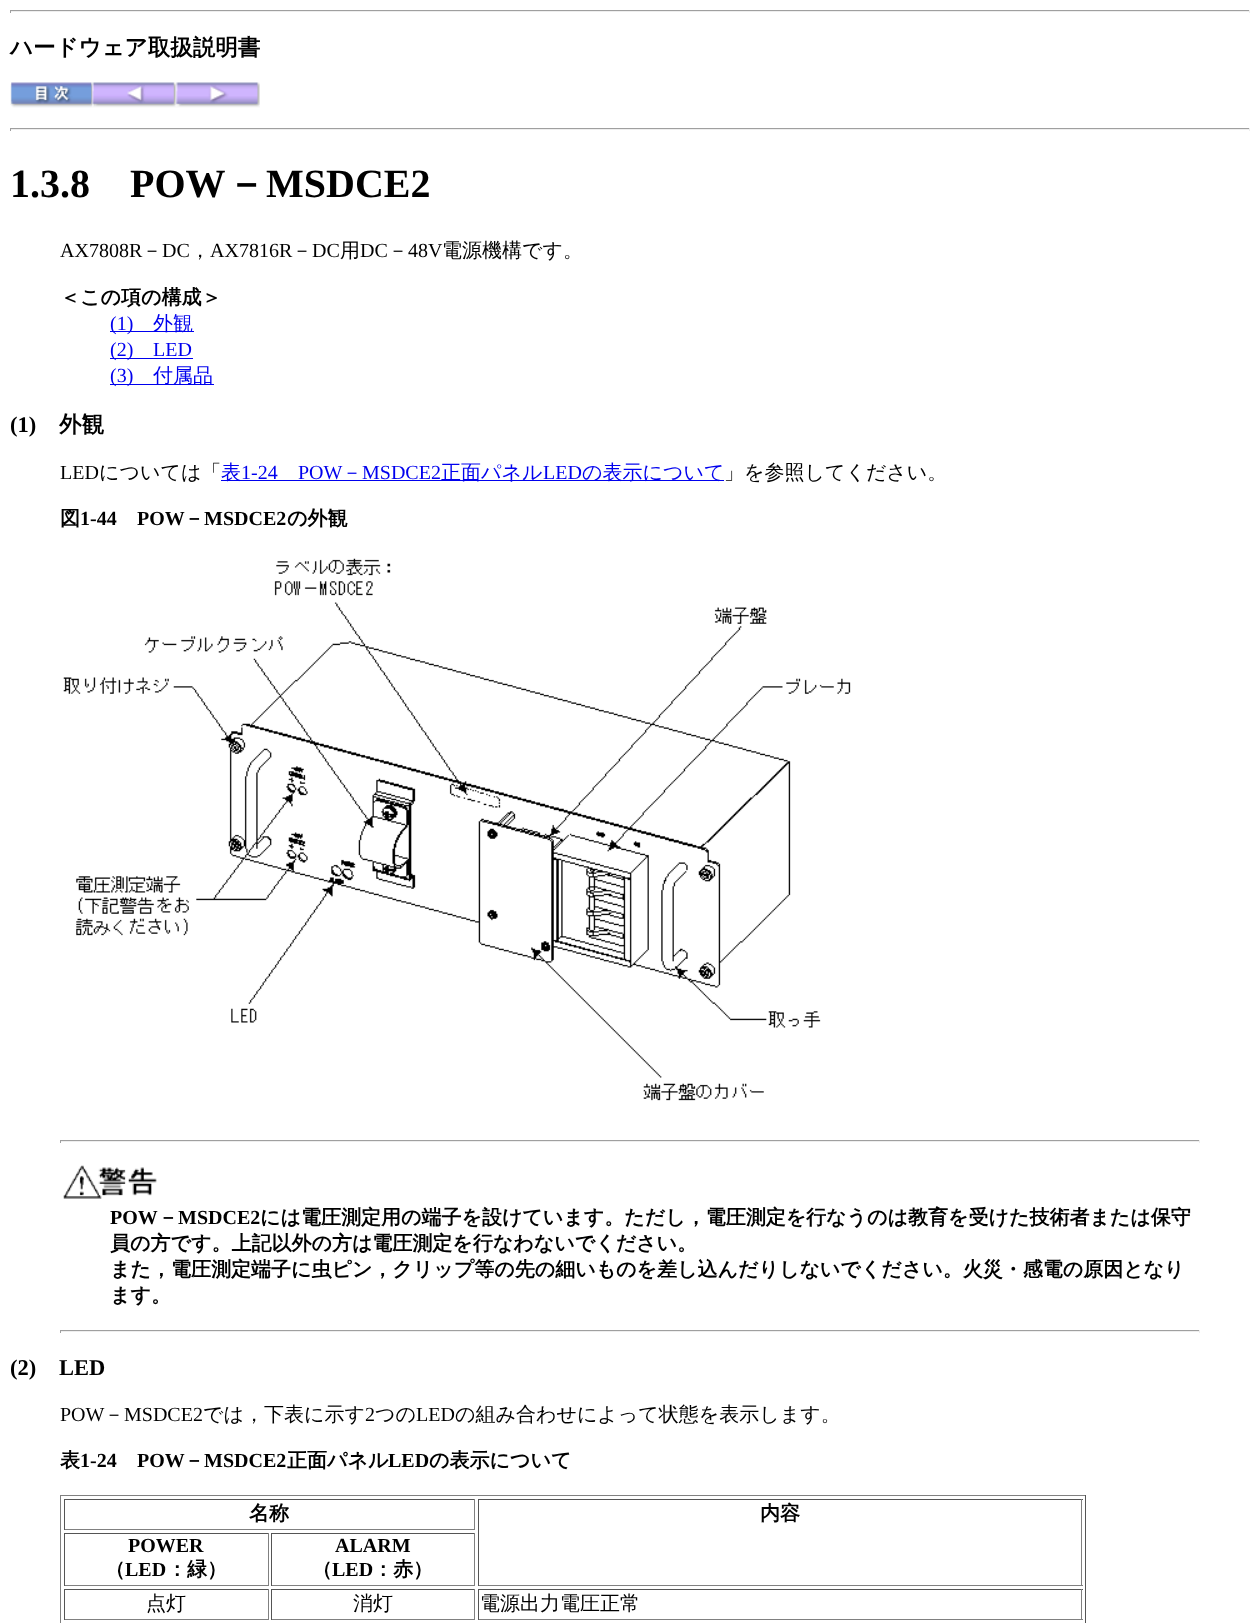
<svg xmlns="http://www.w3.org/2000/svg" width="1259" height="1623">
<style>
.a{font:bold 22.5px WenQuanYi Zen Hei;fill:#000}
.b{font:bold 40px Liberation Serif;fill:#000}
.c{font:bold 40px WenQuanYi Zen Hei;fill:#000}
.d{font:20px Liberation Serif;fill:#000}
.e{font:500 20px WenQuanYi Zen Hei;fill:#000}
.f{font:bold 20px WenQuanYi Zen Hei;fill:#000}
.g{font:20px Liberation Serif;fill:#00e}
.h{font:500 20px WenQuanYi Zen Hei;fill:#00e}
.i{font:bold 22.5px Liberation Serif;fill:#000}
.j{font:bold 20px Liberation Serif;fill:#000}
</style>
<rect width="100%" height="100%" fill="#fff"/>
<path fill="#9f9f9f" d="M10 10h1240v1H10z"/>
<path fill="#eee" d="M1249 10h1v3H1249z"/>
<path fill="#eee" d="M10 11h1240v1H10z"/>
<path fill="#9f9f9f" d="M10 10h1v3H10z"/>
<image href="1.png" x="10" y="82" width="83" height="26"/>
<image href="2.png" x="92" y="82" width="85" height="26"/>
<image href="3.png" x="176" y="82" width="84" height="26"/>
<path fill="#9f9f9f" d="M10 128h1240v1H10z"/>
<path fill="#eee" d="M1249 128h1v3H1249z"/>
<path fill="#eee" d="M10 129h1240v1H10z"/>
<path fill="#9f9f9f" d="M10 128h1v3H10z"/>
<path fill="#00e" d="M110 331h84v1H110z"/>
<path fill="#00e" d="M110 358h83v1H110z"/>
<path fill="#00e" d="M110 384h104v1H110z"/>
<path fill="#00e" d="M221 480h503v1H221z"/>
<image href="4.png" x="63" y="558" width="788" height="543"/>
<path fill="#9f9f9f" d="M60 1140h1140v1H60z"/>
<path fill="#eee" d="M1199 1140h1v3H1199z"/>
<path fill="#eee" d="M60 1141h1140v1H60z"/>
<path fill="#9f9f9f" d="M60 1140h1v3H60z"/>
<image href="5.png" x="63" y="1165" width="94" height="34"/>
<path fill="#9f9f9f" d="M60 1330h1140v1H60z"/>
<path fill="#eee" d="M1199 1330h1v3H1199z"/>
<path fill="#eee" d="M60 1331h1140v1H60z"/>
<path fill="#9f9f9f" d="M60 1330h1v3H60z"/>
<path fill="#808080" d="M60 1495h1026v1H60z"/>
<path fill="#555" d="M1085 1495h1v128H1085z"/>
<path fill="#808080" d="M60 1495h1v128H60z"/>
<path fill="#555" d="M64 1499h411v1H64z"/>
<path fill="#808080" d="M474 1499h1v31H474z"/>
<path fill="#808080" d="M64 1529h411v1H64z"/>
<path fill="#555" d="M64 1499h1v31H64z"/>
<path fill="#555" d="M478 1499h605v1H478z"/>
<path fill="#808080" d="M1081 1499h1v87H1081z"/>
<path fill="#808080" d="M478 1585h605v1H478z"/>
<path fill="#555" d="M478 1499h1v87H478z"/>
<path fill="#555" d="M64 1533h205v1H64z"/>
<path fill="#808080" d="M268 1533h1v53H268z"/>
<path fill="#808080" d="M64 1585h205v1H64z"/>
<path fill="#555" d="M64 1533h1v53H64z"/>
<path fill="#555" d="M271 1533h204v1H271z"/>
<path fill="#808080" d="M474 1533h1v53H474z"/>
<path fill="#808080" d="M271 1585h204v1H271z"/>
<path fill="#555" d="M271 1533h1v53H271z"/>
<path fill="#555" d="M64 1589h205v1H64z"/>
<path fill="#808080" d="M268 1589h1v31H268z"/>
<path fill="#808080" d="M64 1619h205v1H64z"/>
<path fill="#555" d="M64 1589h1v31H64z"/>
<path fill="#555" d="M271 1589h204v1H271z"/>
<path fill="#808080" d="M474 1589h1v31H474z"/>
<path fill="#808080" d="M271 1619h204v1H271z"/>
<path fill="#555" d="M271 1589h1v31H271z"/>
<path fill="#555" d="M478 1589h605v1H478z"/>
<path fill="#808080" d="M1081 1589h1v31H1081z"/>
<path fill="#808080" d="M478 1619h605v1H478z"/>
<path fill="#555" d="M478 1589h1v31H478z"/>
<text class="a" x="10" y="55">ハードウェア取扱説明書</text>
<text class="b" x="10" y="197">1.3.8</text>
<text class="b" x="130" y="197">POW</text>
<text class="c" x="226" y="197">－</text>
<text class="b" x="266" y="197">MSDCE2</text>
<text class="d" x="60" y="257">AX7808R</text>
<text class="e" x="142" y="257">－</text>
<text class="d" x="162" y="257">DC</text>
<text class="d" x="210" y="257">AX7816R</text>
<text class="e" x="292" y="257">－</text>
<text class="d" x="312" y="257">DC</text>
<text class="e" x="340" y="257">用</text>
<text class="d" x="360" y="257">DC</text>
<text class="e" x="388" y="257">－</text>
<text class="d" x="408" y="257">48V</text>
<text class="e" x="442" y="257">電源機構です。</text>
<text class="e" x="190" y="257">，</text>
<text class="f" x="60" y="304">＜この項の構成＞</text>
<text class="g" x="110" y="330">(1)</text>
<text class="h" x="153" y="330">外観</text>
<text class="g" x="110" y="356">(2)</text>
<text class="g" x="153" y="356">LED</text>
<text class="g" x="110" y="382">(3)</text>
<text class="h" x="153" y="382">付属品</text>
<text class="i" x="10" y="432">(1)</text>
<text class="a" x="59" y="432">外観</text>
<text class="d" x="60" y="479">LED</text>
<text class="e" x="99" y="479">については「</text>
<text class="h" x="221" y="479">表</text>
<text class="g" x="241" y="479">1-24</text>
<text class="g" x="298" y="479">POW</text>
<text class="h" x="342" y="479">－</text>
<text class="g" x="362" y="479">MSDCE2</text>
<text class="h" x="441" y="479">正面パネル</text>
<text class="g" x="543" y="479">LED</text>
<text class="h" x="582" y="479">の表示について</text>
<text class="e" x="724" y="479">」を参照してください。</text>
<text class="f" x="60" y="525">図</text>
<text class="j" x="80" y="525">1-44</text>
<text class="j" x="137" y="525">POW</text>
<text class="f" x="184" y="525">－</text>
<text class="j" x="204" y="525">MSDCE2</text>
<text class="f" x="287" y="525">の外観</text>
<text class="j" x="110" y="1224">POW</text>
<text class="f" x="158" y="1224">－</text>
<text class="j" x="178" y="1224">MSDCE2</text>
<text class="f" x="260" y="1224">には電圧測定用の端子を設けています。ただし，電圧測定を行なうのは教育を受けた技術者または保守</text>
<text class="f" x="110" y="1250">員の方です。上記以外の方は電圧測定を行なわないでください。</text>
<text class="f" x="110" y="1276">また，電圧測定端子に虫ピン，クリップ等の先の細いものを差し込んだりしないでください。火災・感電の原因となり</text>
<text class="f" x="110" y="1302">ます。</text>
<text class="i" x="10" y="1375">(2)</text>
<text class="i" x="59" y="1375">LED</text>
<text class="d" x="60" y="1421">POW</text>
<text class="e" x="104" y="1421">－</text>
<text class="d" x="124" y="1421">MSDCE2</text>
<text class="e" x="203" y="1421">では，下表に示す</text>
<text class="d" x="365" y="1421">2</text>
<text class="e" x="375" y="1421">つの</text>
<text class="d" x="416" y="1421">LED</text>
<text class="e" x="455" y="1421">の組み合わせによって状態を表示します。</text>
<text class="f" x="60" y="1467">表</text>
<text class="j" x="80" y="1467">1-24</text>
<text class="j" x="137" y="1467">POW</text>
<text class="f" x="184" y="1467">－</text>
<text class="j" x="204" y="1467">MSDCE2</text>
<text class="f" x="287" y="1467">正面パネル</text>
<text class="j" x="388" y="1467">LED</text>
<text class="f" x="429" y="1467">の表示について</text>
<text class="f" x="249" y="1520">名称</text>
<text class="f" x="760" y="1520">内容</text>
<text class="j" x="128" y="1552">POWER</text>
<text class="f" x="105" y="1576">（</text>
<text class="j" x="125" y="1576">LED</text>
<text class="f" x="167" y="1576">：緑）</text>
<text class="j" x="335" y="1552">ALARM</text>
<text class="f" x="312" y="1576">（</text>
<text class="j" x="332" y="1576">LED</text>
<text class="f" x="373" y="1576">：赤）</text>
<text class="e" x="146" y="1610">点灯</text>
<text class="e" x="353" y="1610">消灯</text>
<text class="e" x="480" y="1610">電源出力電圧正常</text>
</svg>
